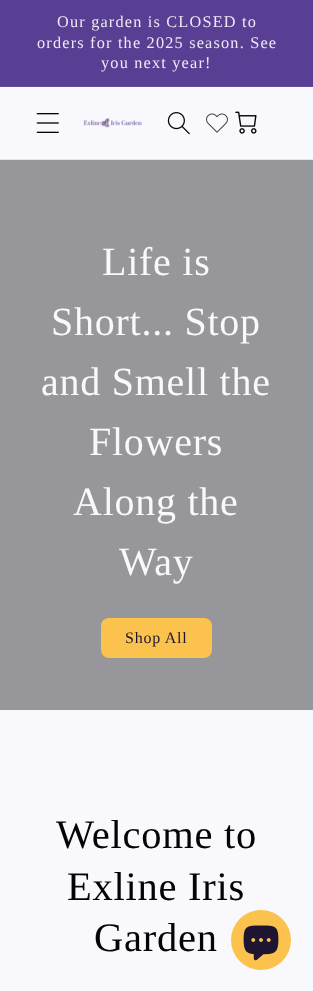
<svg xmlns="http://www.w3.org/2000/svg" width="313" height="991">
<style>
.a{font:16.25px Liberation Serif;letter-spacing:1.2px;fill:#edeaf6}
.b{font:40px Liberation Serif;letter-spacing:0.75px;fill:#f9f8fc}
.c{font:16px Liberation Serif;letter-spacing:0.75px;fill:#1e1532}
.d{font:40.5px Liberation Serif;letter-spacing:0.75px;fill:#040307}
</style>
<rect width="100%" height="100%" fill="#f9f8fc"/>
<path fill="#593f93" d="M0 0h313v86H0z"/>
<path fill="#654d9b" d="M0 86h313v1H0z"/>
<path fill="#e5e4e8" d="M0 159h313v1H0z"/>
<image href="1.png" x="36" y="113" width="23" height="20"/>
<image href="2.png" x="83" y="118" width="59" height="10"/>
<image href="3.png" x="167" y="112" width="23" height="23"/>
<image href="4.png" x="206" y="113" width="22" height="20"/>
<image href="5.png" x="235" y="111" width="22" height="23"/>
<path fill="#97969a" d="M0 160h313v550H0z"/>
<rect fill="#fbc24e" x="101" y="618" width="111" height="40" rx="8"/>
<circle fill="#fbc24e" cx="261" cy="940" r="30"/>
<image href="6.png" x="243" y="925" width="36" height="36"/>
<text class="a" x="57" y="27">Our garden is CLOSED to</text>
<text class="a" x="37" y="48">orders for the 2025 season. See</text>
<text class="a" x="101" y="68">you next year!</text>
<text class="b" x="102" y="275">Life is</text>
<text class="b" x="51" y="335">Short... Stop</text>
<text class="b" x="41" y="395">and Smell the</text>
<text class="b" x="89" y="455">Flowers</text>
<text class="b" x="73" y="515">Along the</text>
<text class="b" x="119" y="575">Way</text>
<text class="c" x="125" y="643">Shop All</text>
<text class="d" x="56" y="848">Welcome to</text>
<text class="d" x="67" y="900">Exline Iris</text>
<text class="d" x="94" y="951">Garden</text>
</svg>
